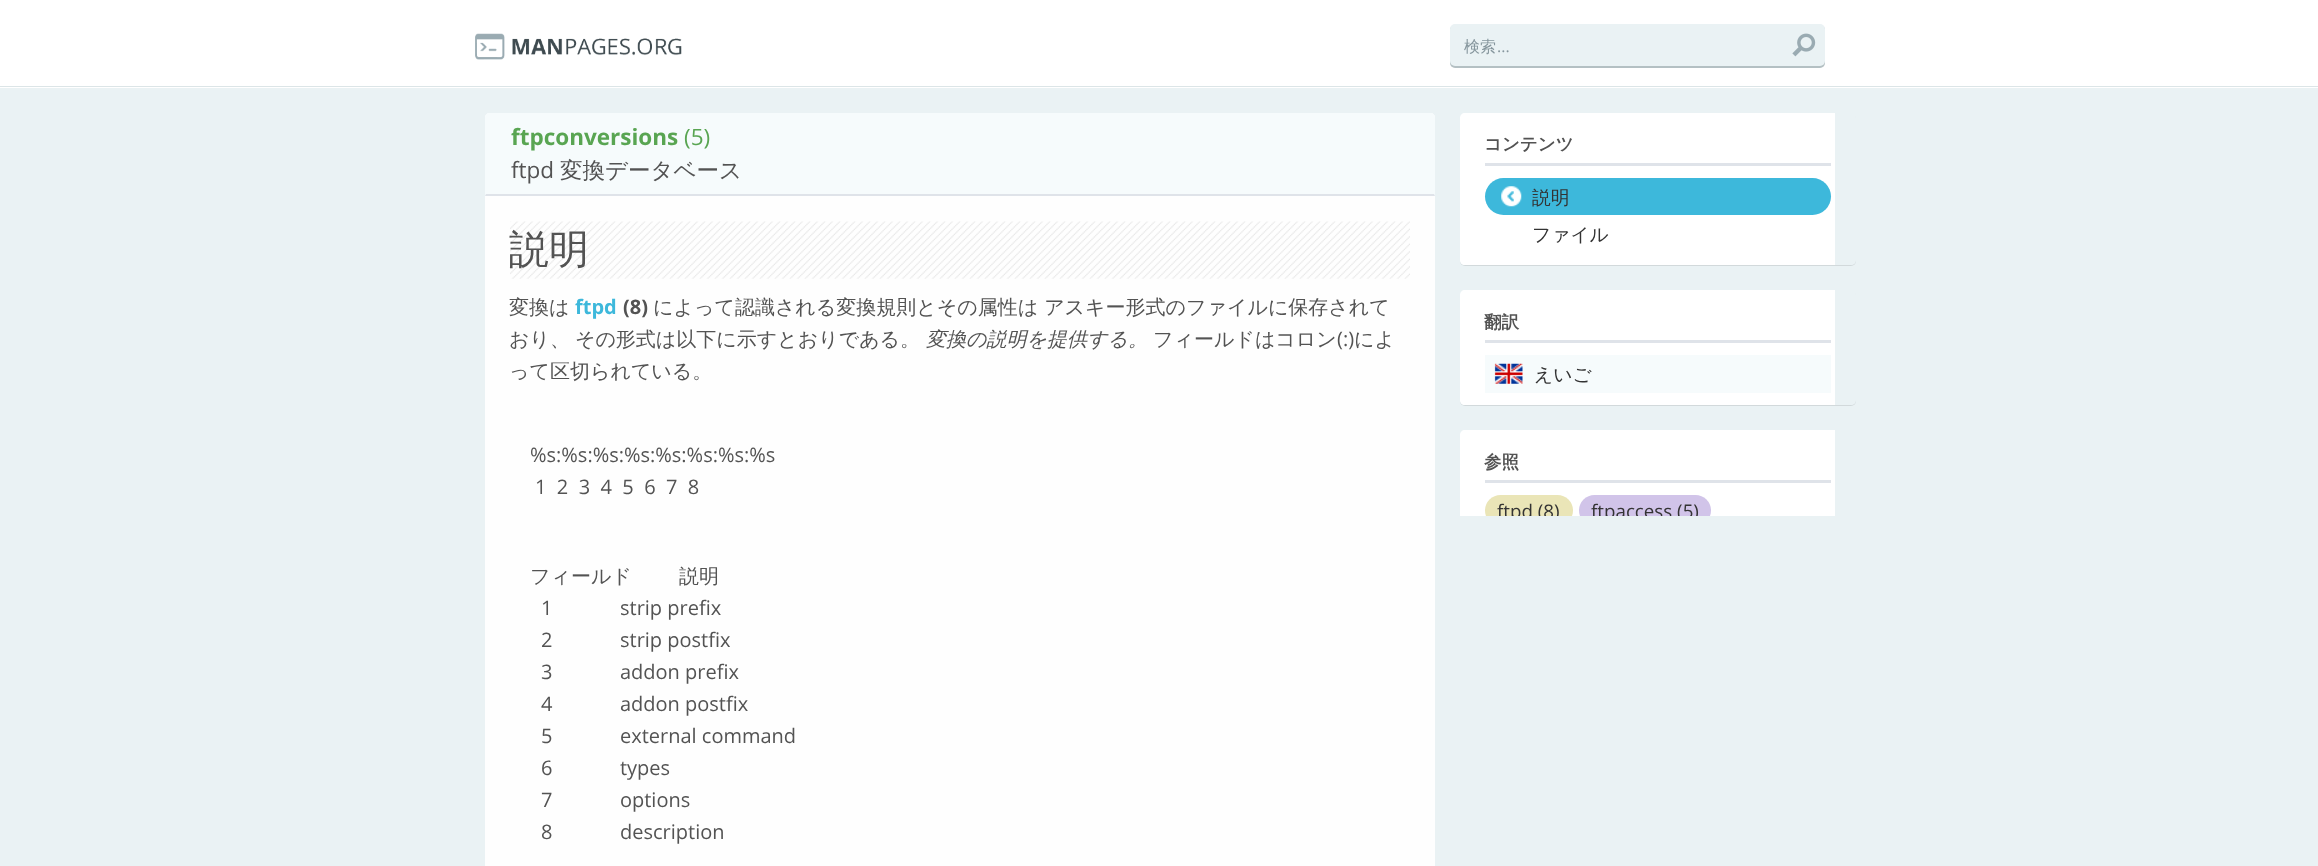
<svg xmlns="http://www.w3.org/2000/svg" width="2318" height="866">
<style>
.a{font:500 16px WenQuanYi Zen Hei;fill:#86969d}
.b{font:16px Open Sans;fill:#86969d}
.c{font:bold 22.5px Open Sans;fill:#59a552}
.d{font:22.5px Open Sans;fill:#59a552}
.e{font:22.5px Open Sans;fill:#535353}
.f{font:500 22.5px WenQuanYi Zen Hei;fill:#535353}
.g{font:500 40px WenQuanYi Zen Hei;fill:#535353}
.h{font:500 20px WenQuanYi Zen Hei;fill:#535353}
.i{font:bold 20px Open Sans;fill:#3db8db}
.j{font:bold 20px Open Sans;fill:#535353}
.k{font:italic 500 20px WenQuanYi Zen Hei;fill:#535353}
.l{font:20px Open Sans;fill:#535353}
.m{font:bold 17.5px WenQuanYi Zen Hei;fill:#535353}
.n{font:500 18.75px WenQuanYi Zen Hei;fill:#333}
.o{font:18.75px Open Sans;fill:#333}
</style>
<defs>
<clipPath id="clip1"><path d="M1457 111h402v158h-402zm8 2h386c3 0 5 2 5 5v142c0 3-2 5-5 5h-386c-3 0-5-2-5-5v-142c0-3 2-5 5-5z" clip-rule="evenodd"/></clipPath>
<clipPath id="clip2"><path d="M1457 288h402v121h-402zm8 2h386c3 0 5 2 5 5v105c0 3-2 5-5 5h-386c-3 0-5-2-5-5v-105c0-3 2-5 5-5z" clip-rule="evenodd"/></clipPath>
<clipPath id="clip3"><path d="M1460 113h375v403H1460z"/></clipPath>
</defs>
<rect width="100%" height="100%" fill="#eaf2f4"/>
<path fill="#fff" d="M0 0h2318v88H0z"/>
<path fill="#dce5e7" d="M0 86h2318v1H0z"/>
<image href="1.png" x="475" y="33" width="207" height="27"/>
<rect fill="#062f374d" filter="blur(0.5px)" x="1450" y="25" width="375" height="43" rx="5"/>
<rect fill="#eaf2f4" x="1450" y="24" width="375" height="42" rx="5"/>
<image href="2.png" x="1792" y="33" width="24" height="24"/>
<path fill="#fefefe" d="M490 113h940c3 0 5 2 5 5v748h-950v-748c0-3 2-5 5-5z"/>
<path fill="#f6fbfc" d="M489 113h942c2 0 4 2 4 4v79h-950v-79c0-2 2-4 4-4z"/>
<path fill="#dfe3e9" d="M1435 196h-950l1-2h948z"/>
<image href="3.png" x="510" y="221" width="900" height="58"/>
<g clip-path="url(#clip1)">
<rect fill="#0000001a" filter="blur(0.5px)" x="1460" y="114" width="396" height="152" rx="5"/>
</g>
<path fill="#fff" d="M1465 113h370v152h-370c-3 0-5-2-5-5v-142c0-3 2-5 5-5z"/>
<path fill="#dfe3e9" d="M1485 163h346v3H1485z"/>
<rect fill="#3db8db" x="1485" y="178" width="346" height="37" rx="18.5"/>
<image href="4.png" x="1501" y="186" width="21" height="21"/>
<g clip-path="url(#clip2)">
<rect fill="#0000001a" filter="blur(0.5px)" x="1460" y="291" width="396" height="115" rx="5"/>
</g>
<path fill="#fff" d="M1465 290h370v115h-370c-3 0-5-2-5-5v-105c0-3 2-5 5-5z"/>
<path fill="#dfe3e9" d="M1485 340h346v3H1485z"/>
<path fill="#f6fbfc" d="M1485 355h346v38H1485z"/>
<image href="5.png" x="1494" y="363" width="29" height="21"/>
<path fill="#fff" d="M1465 430h370v86h-375v-81c0-3 2-5 5-5z"/>
<path fill="#dfe3e9" d="M1485 480h346v3H1485z"/>
<g clip-path="url(#clip3)">
<rect fill="#eae5b7" x="1485" y="495" width="88" height="31" rx="15.5"/>
<rect fill="#d1c4e9" x="1579" y="495" width="132" height="31" rx="15.5"/>
</g>
<text class="a" x="1464" y="52">検索</text>
<text class="b" x="1497" y="52">...</text>
<text class="c" x="511" y="145">ftpconversions</text>
<text class="d" x="684" y="145">(5)</text>
<text class="e" x="511" y="178">ftpd</text>
<text class="f" x="560" y="178">変換データベース</text>
<text class="g" x="509" y="263">説明</text>
<text class="h" x="509" y="314">変換は</text>
<text class="i" x="575" y="314">ftpd</text>
<text class="j" x="623" y="314">(8)</text>
<text class="h" x="653" y="314">によって認識される変換規則とその属性は アスキー形式のファイルに保存されて</text>
<text class="h" x="509" y="346" word-spacing="-1">おり、 その形式は以下に示すとおりである。</text>
<text class="k" x="926" y="346">変換の説明を提供する。</text>
<text class="h" x="1153" y="346">フィールドはコロン</text>
<text class="l" x="1337" y="346">(:)</text>
<text class="h" x="1354" y="346">によ</text>
<text class="h" x="509" y="378">って区切られている。</text>
<text class="l" x="530" y="462">%s:%s:%s:%s:%s:%s:%s:%s</text>
<text class="l" xml:space="preserve" x="535" y="494">1  2  3  4  5  6  7  8</text>
<text class="h" x="530" y="583">フィールド</text>
<text class="h" x="679" y="583">説明</text>
<text class="l" xml:space="preserve" x="541" y="615">1             strip prefix</text>
<text class="l" xml:space="preserve" x="541" y="647">2             strip postfix</text>
<text class="l" xml:space="preserve" x="541" y="679">3             addon prefix</text>
<text class="l" xml:space="preserve" x="541" y="711">4             addon postfix</text>
<text class="l" xml:space="preserve" x="541" y="743">5             external command</text>
<text class="l" xml:space="preserve" x="541" y="775">6             types</text>
<text class="l" xml:space="preserve" x="541" y="807">7             options</text>
<text class="l" xml:space="preserve" x="541" y="839">8             description</text>
<text class="m" x="1484" y="150">コンテンツ</text>
<text class="n" x="1532" y="204">説明</text>
<text class="n" x="1532" y="241">ファイル</text>
<text class="m" x="1484" y="328">翻訳</text>
<text class="n" x="1534" y="381">えいご</text>
<text class="m" x="1484" y="468">参照</text>
<g clip-path="url(#clip3)">
<text class="o" x="1497" y="518">ftpd (8)</text>
<text class="o" x="1591" y="518">ftpaccess (5)</text>
</g>
</svg>
